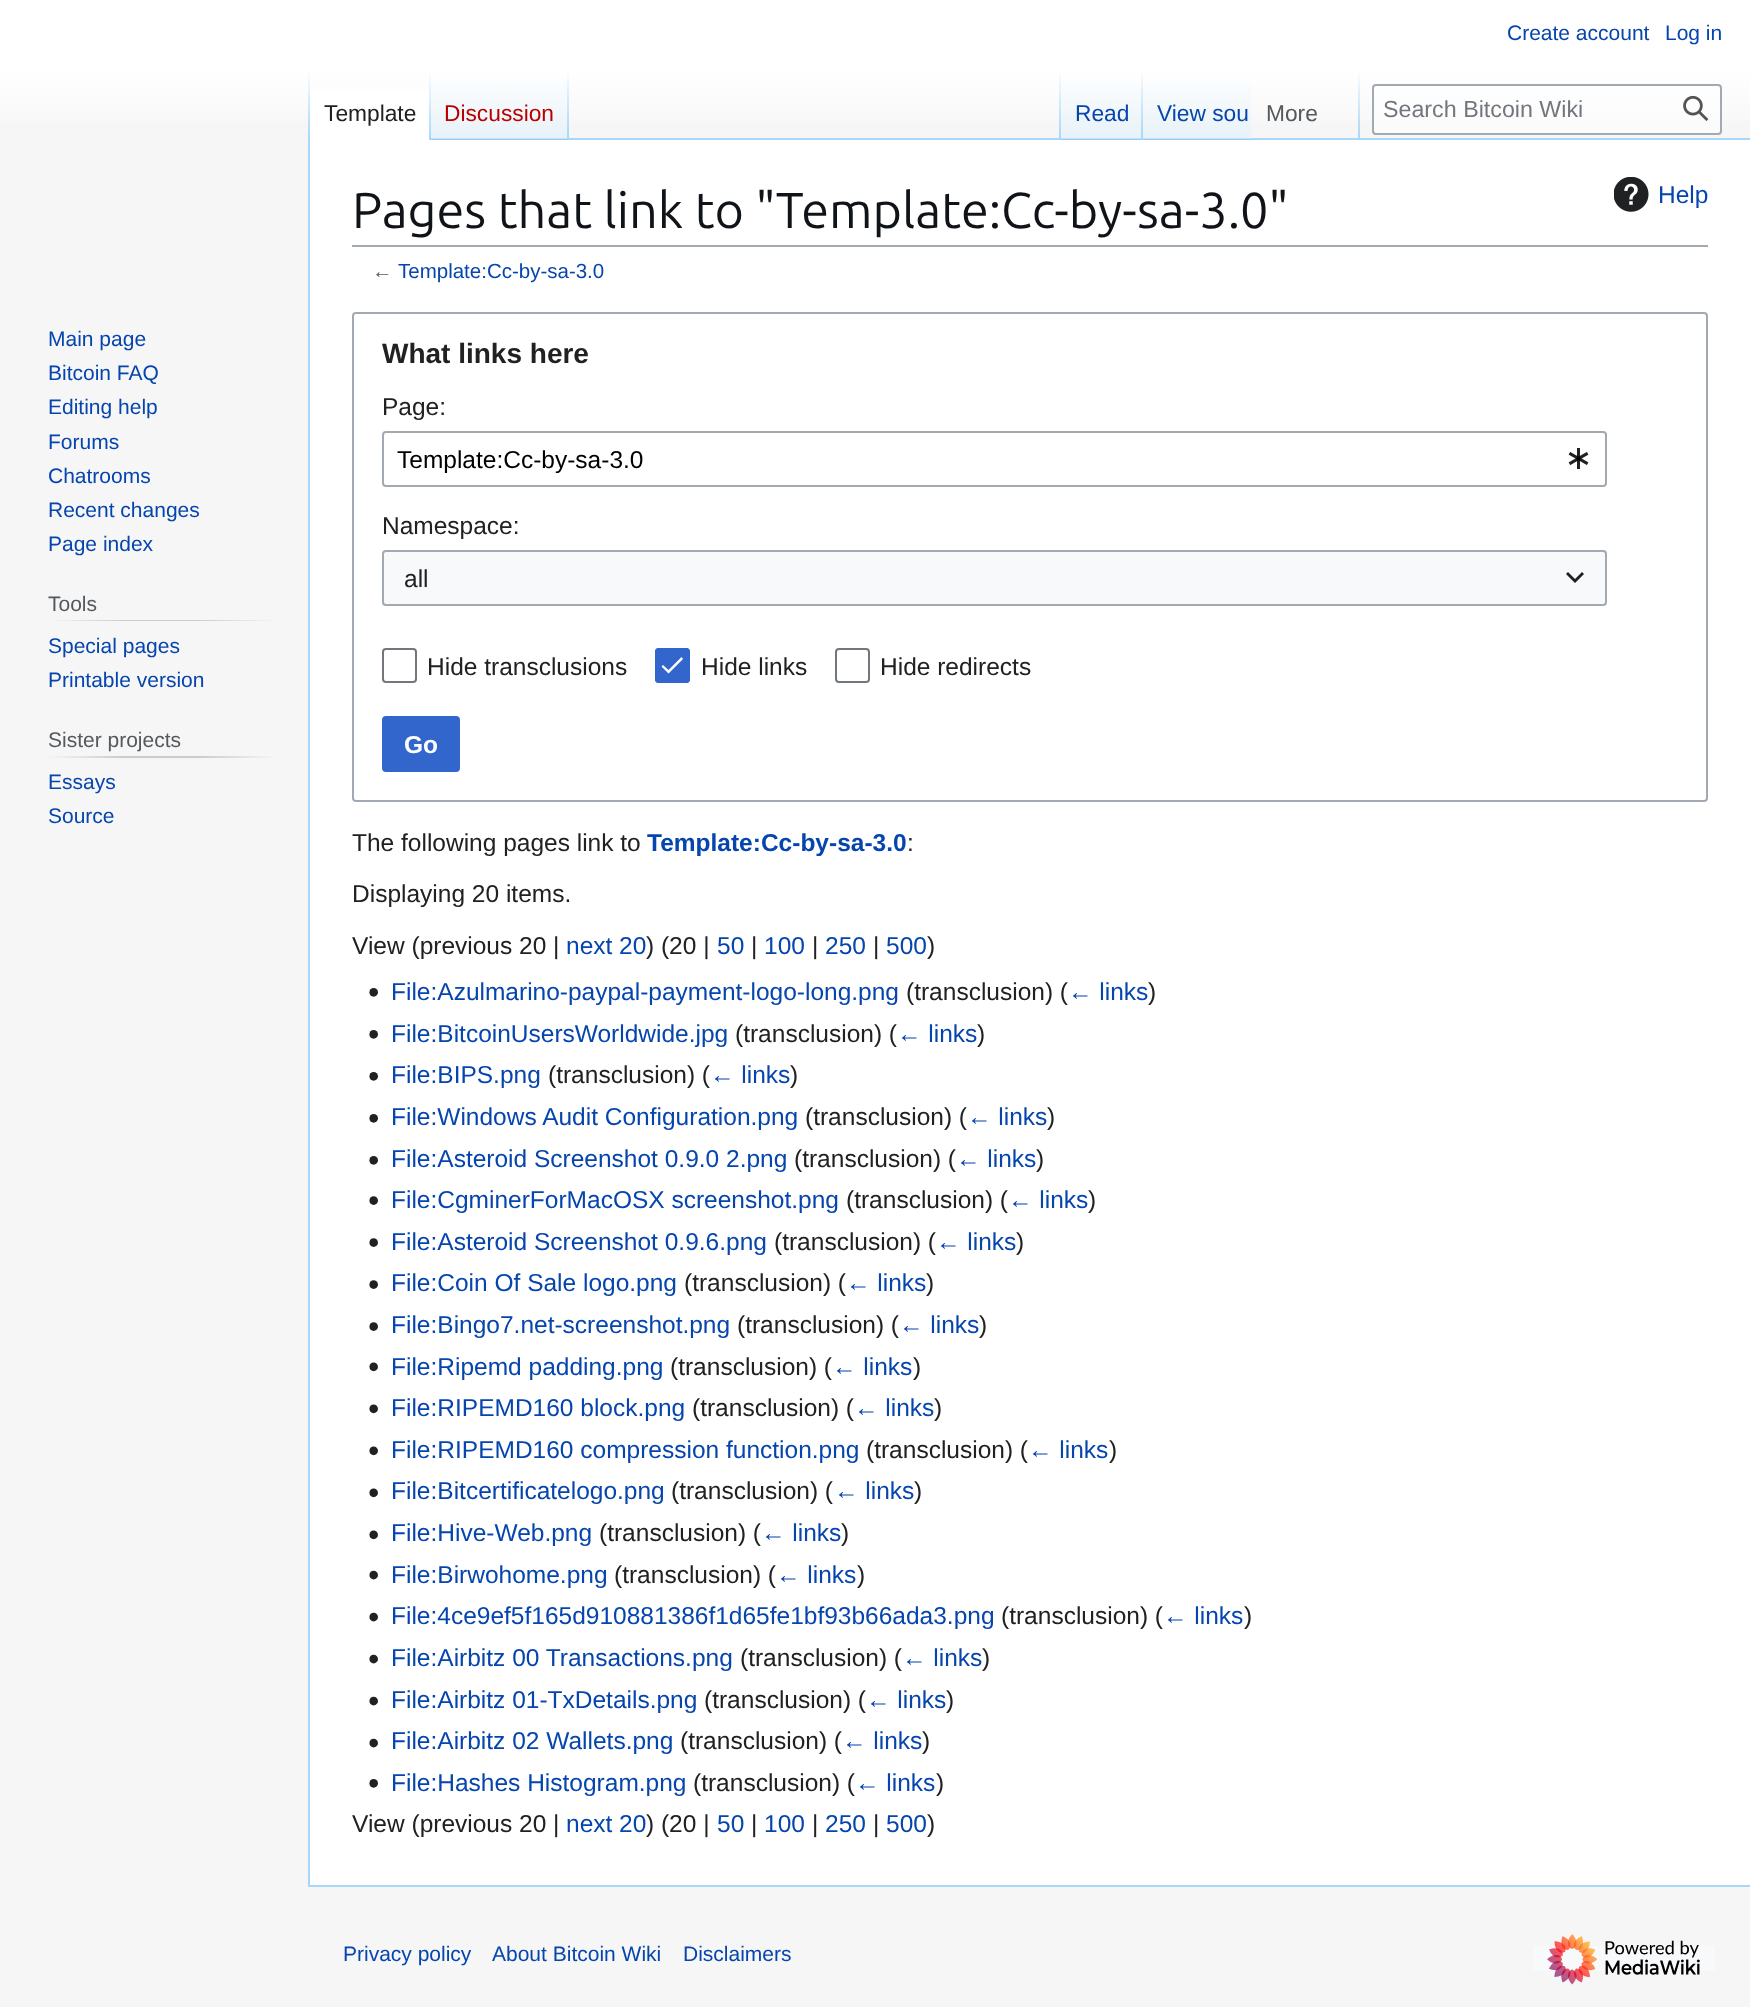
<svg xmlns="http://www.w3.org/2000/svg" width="1750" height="2007">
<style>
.a{font:21px Liberation Sans;fill:#0645ad}
.b{font:22.75px Liberation Sans;fill:#202122}
.c{font:22.75px Liberation Sans;fill:#ba0000}
.d{font:22.75px Liberation Sans;fill:#0645ad}
.e{font:22.75px Liberation Sans;fill:#54595d}
.f{font:23.25px Liberation Sans;fill:#72777d}
.g{font:21px Liberation Sans;fill:#54595d}
.h{font:50.4px Ubuntu;fill:#101418}
.i{font:24.5px Liberation Sans;fill:#0645ad}
.j{font:20.5px Liberation Sans;fill:#54595d}
.k{font:20.5px Liberation Sans;fill:#0645ad}
.l{font:bold 28px Liberation Sans;fill:#202122}
.m{font:24.5px Liberation Sans;fill:#202122}
.n{font:24.5px Liberation Sans;fill:#000}
.o{font:bold 24.5px Liberation Sans;fill:#fff}
.p{font:bold 24.5px Liberation Sans;fill:#0645ad}
</style>
<defs>
<linearGradient id="g1" gradientUnits="userSpaceOnUse" x1="875" y1="0" x2="875" y2="140"><stop offset="0.5" stop-color="#fff"/><stop offset="1" stop-color="#f6f6f6"/></linearGradient>
<linearGradient id="g2" gradientUnits="userSpaceOnUse" x1="309" y1="70" x2="309" y2="140"><stop offset="0" stop-color="#a7d7f9" stop-opacity="0"/><stop offset="1" stop-color="#a7d7f9"/></linearGradient>
<linearGradient id="g3" gradientUnits="userSpaceOnUse" x1="430" y1="70" x2="430" y2="140"><stop offset="0" stop-color="#fff"/><stop offset="1" stop-color="#a7d7f9"/></linearGradient>
<linearGradient id="g4" gradientUnits="userSpaceOnUse" x1="500" y1="140" x2="500" y2="70"><stop offset="0" stop-color="#77c1f6"/><stop offset="0.03" stop-color="#e8f2f8"/><stop offset="1" stop-color="#fff"/></linearGradient>
<linearGradient id="g5" gradientUnits="userSpaceOnUse" x1="568" y1="70" x2="568" y2="140"><stop offset="0" stop-color="#a7d7f9" stop-opacity="0"/><stop offset="1" stop-color="#a7d7f9"/></linearGradient>
<linearGradient id="g6" gradientUnits="userSpaceOnUse" x1="1060" y1="70" x2="1060" y2="140"><stop offset="0" stop-color="#a7d7f9" stop-opacity="0"/><stop offset="1" stop-color="#a7d7f9"/></linearGradient>
<linearGradient id="g7" gradientUnits="userSpaceOnUse" x1="1102" y1="140" x2="1102" y2="70"><stop offset="0" stop-color="#77c1f6"/><stop offset="0.03" stop-color="#e8f2f8"/><stop offset="1" stop-color="#fff"/></linearGradient>
<linearGradient id="g8" gradientUnits="userSpaceOnUse" x1="1142" y1="70" x2="1142" y2="140"><stop offset="0" stop-color="#a7d7f9" stop-opacity="0"/><stop offset="1" stop-color="#a7d7f9"/></linearGradient>
<linearGradient id="g9" gradientUnits="userSpaceOnUse" x1="1197" y1="140" x2="1197" y2="70"><stop offset="0" stop-color="#77c1f6"/><stop offset="0.03" stop-color="#e8f2f8"/><stop offset="1" stop-color="#fff"/></linearGradient>
<linearGradient id="g10" gradientUnits="userSpaceOnUse" x1="1359" y1="70" x2="1359" y2="140"><stop offset="0" stop-color="#a7d7f9" stop-opacity="0"/><stop offset="1" stop-color="#a7d7f9"/></linearGradient>
<linearGradient id="g11" gradientUnits="userSpaceOnUse" x1="47" y1="620" x2="277" y2="620"><stop offset="0" stop-color="#f6f6f6"/><stop offset="0.33" stop-color="#c8ccd1"/><stop offset="0.66" stop-color="#c8ccd1"/><stop offset="1" stop-color="#f6f6f6"/></linearGradient>
<linearGradient id="g12" gradientUnits="userSpaceOnUse" x1="47" y1="757" x2="277" y2="757"><stop offset="0" stop-color="#f6f6f6"/><stop offset="0.33" stop-color="#c8ccd1"/><stop offset="0.66" stop-color="#c8ccd1"/><stop offset="1" stop-color="#f6f6f6"/></linearGradient>
</defs>
<rect width="100%" height="100%" fill="#f6f6f6"/>
<path fill="url(#g1)" d="M0 0h1750v121H0z"/>
<path fill="#a7d7f9" d="M308 1885h1442v2H308z"/>
<path fill="#a7d7f9" d="M308 138h2v1749H308z"/>
<path fill="url(#g2)" d="M308 70h2v70H308z"/>
<path fill="#fff" d="M310 89h119v51H310z"/>
<path fill="url(#g3)" d="M429 70h2v70H429z"/>
<path fill="url(#g4)" d="M431 80h138v60H431z"/>
<path fill="url(#g5)" d="M567 70h2v70H567z"/>
<path fill="#a7d7f9" d="M569 138h1181v2H569z"/>
<path fill="url(#g6)" d="M1059 70h2v70H1059z"/>
<path fill="url(#g7)" d="M1061 80h82v60H1061z"/>
<path fill="url(#g8)" d="M1141 70h2v70H1141z"/>
<path fill="url(#g9)" d="M1143 80h108v60H1143z"/>
<path fill="url(#g10)" d="M1358 70h2v70H1358z"/>
<rect fill="#ffffff80" stroke="#a2a9b1" stroke-width="2" x="1373" y="85" width="348" height="49" rx="3"/>
<image href="1.png" x="1683" y="95" width="26" height="26"/>
<path fill="url(#g11)" d="M47 620h230v1H47z"/>
<path fill="url(#g12)" d="M47 756h230v2H47z"/>
<path fill="#fff" d="M310 140h1440v1745H310z"/>
<path fill="#a2a9b1" d="M352 245h1356v2H352z"/>
<image href="2.png" x="1614" y="177" width="35" height="35"/>
<rect fill="none" stroke="#a2a9b1" stroke-width="2" x="353" y="313" width="1354" height="488" rx="3"/>
<rect fill="none" stroke="#a2a9b1" stroke-width="2" x="383" y="432" width="1223" height="54" rx="3"/>
<image href="3.png" x="1568" y="448" width="21" height="21"/>
<path fill="#f8f9fa" d="M382 550h1225v56H382z"/>
<rect fill="none" stroke="#a2a9b1" stroke-width="2" x="383" y="551" width="1223" height="54" rx="3"/>
<path fill="#202021" d="M1582 572l-7 7l-7-7l-2 2l9 9l9-9z"/>
<rect fill="none" stroke="#72777d" stroke-width="2" x="383" y="649" width="33" height="33" rx="3"/>
<rect fill="#36c" x="655" y="648" width="35" height="35" rx="4"/>
<path fill="#fff" d="M668.5 670l-5.5-5l-1.5 1.5l7 7l14.5-14.5l-1.5-2z"/>
<rect fill="none" stroke="#36c" stroke-width="2" x="656" y="649" width="33" height="33" rx="3"/>
<rect fill="none" stroke="#72777d" stroke-width="2" x="836" y="649" width="33" height="33" rx="3"/>
<rect fill="#36c" stroke="#36c" stroke-width="2" x="383" y="717" width="76" height="54" rx="3"/>
<image href="4.png" x="369" y="988" width="9" height="9"/>
<image href="4.png" x="369" y="1030" width="9" height="9"/>
<image href="4.png" x="369" y="1072" width="9" height="9"/>
<image href="4.png" x="369" y="1114" width="9" height="9"/>
<image href="4.png" x="369" y="1156" width="9" height="9"/>
<image href="5.png" x="369" y="1196" width="9" height="9"/>
<image href="5.png" x="369" y="1238" width="9" height="9"/>
<image href="5.png" x="369" y="1280" width="9" height="9"/>
<image href="5.png" x="369" y="1322" width="9" height="9"/>
<image href="6.png" x="369" y="1362" width="9" height="10"/>
<image href="6.png" x="369" y="1404" width="9" height="10"/>
<image href="6.png" x="369" y="1446" width="9" height="10"/>
<image href="6.png" x="369" y="1488" width="9" height="10"/>
<image href="6.png" x="369" y="1530" width="9" height="10"/>
<image href="7.png" x="369" y="1570" width="9" height="10"/>
<image href="7.png" x="369" y="1612" width="9" height="10"/>
<image href="7.png" x="369" y="1654" width="9" height="10"/>
<image href="7.png" x="369" y="1696" width="9" height="10"/>
<image href="7.png" x="369" y="1738" width="9" height="10"/>
<image href="4.png" x="369" y="1779" width="9" height="9"/>
<path fill="#f8f9fa" d="M1533 1946h182v25H1533z"/>
<image href="8.png" x="1547" y="1934" width="153" height="51"/>
<text class="a" x="1507" y="40">Create account</text>
<text class="a" x="1665" y="40">Log in</text>
<text class="b" x="324" y="121">Template</text>
<text class="c" x="444" y="121">Discussion</text>
<text class="d" x="1075" y="121">Read</text>
<text class="d" x="1157" y="121">View sou</text>
<text class="e" x="1266" y="121">More</text>
<text class="f" x="1383" y="117">Search Bitcoin Wiki</text>
<text class="a" x="48" y="346">Main page</text>
<text class="a" x="48" y="380">Bitcoin FAQ</text>
<text class="a" x="48" y="414">Editing help</text>
<text class="a" x="48" y="449">Forums</text>
<text class="a" x="48" y="483">Chatrooms</text>
<text class="a" x="48" y="517">Recent changes</text>
<text class="a" x="48" y="551">Page index</text>
<text class="g" x="48" y="611">Tools</text>
<text class="a" x="48" y="653">Special pages</text>
<text class="a" x="48" y="687">Printable version</text>
<text class="g" x="48" y="747">Sister projects</text>
<text class="a" x="48" y="789">Essays</text>
<text class="a" x="48" y="823">Source</text>
<text class="h" x="352" y="228">Pages that link to "Template:Cc-by-sa-3.0"</text>
<text class="i" x="1658" y="203">Help</text>
<text class="j" x="372" y="278">←</text>
<text class="k" x="398" y="278">Template:Cc-by-sa-3.0</text>
<text class="l" x="382" y="363">What links here</text>
<text class="m" x="382" y="415">Page:</text>
<text class="n" x="397" y="468">Template:Cc-by-sa-3.0</text>
<text class="m" x="382" y="534">Namespace:</text>
<text class="m" x="404" y="587">all</text>
<text class="m" x="427" y="675">Hide transclusions</text>
<text class="m" x="701" y="675">Hide links</text>
<text class="m" x="880" y="675">Hide redirects</text>
<text class="o" x="404" y="753">Go</text>
<text class="m" x="352" y="851">The following pages link to</text>
<text class="p" x="647" y="851">Template:Cc-by-sa-3.0</text>
<text class="m" x="907" y="851">:</text>
<text class="m" x="352" y="902">Displaying 20 items.</text>
<text class="m" x="352" y="954">View (previous 20 |</text>
<text class="i" x="566" y="954">next 20</text>
<text class="m" x="646" y="954">) (20 |</text>
<text class="i" x="717" y="954">50</text>
<text class="m" x="751" y="954">|</text>
<text class="i" x="764" y="954">100</text>
<text class="m" x="812" y="954">|</text>
<text class="i" x="825" y="954">250</text>
<text class="m" x="873" y="954">|</text>
<text class="i" x="886" y="954">500</text>
<text class="m" x="927" y="954">)</text>
<text class="i" x="391" y="1000">File:Azulmarino-paypal-payment-logo-long.png</text>
<text class="m" x="906" y="1000">(transclusion) (</text>
<text class="i" x="1068" y="1000">← links</text>
<text class="m" x="1148" y="1000">)</text>
<text class="i" x="391" y="1042">File:BitcoinUsersWorldwide.jpg</text>
<text class="m" x="735" y="1042">(transclusion) (</text>
<text class="i" x="897" y="1042">← links</text>
<text class="m" x="977" y="1042">)</text>
<text class="i" x="391" y="1083">File:BIPS.png</text>
<text class="m" x="548" y="1083">(transclusion) (</text>
<text class="i" x="710" y="1083">← links</text>
<text class="m" x="790" y="1083">)</text>
<text class="i" x="391" y="1125">File:Windows Audit Configuration.png</text>
<text class="m" x="805" y="1125">(transclusion) (</text>
<text class="i" x="967" y="1125">← links</text>
<text class="m" x="1047" y="1125">)</text>
<text class="i" x="391" y="1167">File:Asteroid Screenshot 0.9.0 2.png</text>
<text class="m" x="794" y="1167">(transclusion) (</text>
<text class="i" x="956" y="1167">← links</text>
<text class="m" x="1036" y="1167">)</text>
<text class="i" x="391" y="1208">File:CgminerForMacOSX screenshot.png</text>
<text class="m" x="846" y="1208">(transclusion) (</text>
<text class="i" x="1008" y="1208">← links</text>
<text class="m" x="1088" y="1208">)</text>
<text class="i" x="391" y="1250">File:Asteroid Screenshot 0.9.6.png</text>
<text class="m" x="774" y="1250">(transclusion) (</text>
<text class="i" x="936" y="1250">← links</text>
<text class="m" x="1016" y="1250">)</text>
<text class="i" x="391" y="1291">File:Coin Of Sale logo.png</text>
<text class="m" x="684" y="1291">(transclusion) (</text>
<text class="i" x="846" y="1291">← links</text>
<text class="m" x="926" y="1291">)</text>
<text class="i" x="391" y="1333">File:Bingo7.net-screenshot.png</text>
<text class="m" x="737" y="1333">(transclusion) (</text>
<text class="i" x="899" y="1333">← links</text>
<text class="m" x="979" y="1333">)</text>
<text class="i" x="391" y="1375">File:Ripemd padding.png</text>
<text class="m" x="670" y="1375">(transclusion) (</text>
<text class="i" x="832" y="1375">← links</text>
<text class="m" x="913" y="1375">)</text>
<text class="i" x="391" y="1416">File:RIPEMD160 block.png</text>
<text class="m" x="692" y="1416">(transclusion) (</text>
<text class="i" x="854" y="1416">← links</text>
<text class="m" x="934" y="1416">)</text>
<text class="i" x="391" y="1458">File:RIPEMD160 compression function.png</text>
<text class="m" x="866" y="1458">(transclusion) (</text>
<text class="i" x="1028" y="1458">← links</text>
<text class="m" x="1109" y="1458">)</text>
<text class="i" x="391" y="1499">File:Bitcertificatelogo.png</text>
<text class="m" x="671" y="1499">(transclusion) (</text>
<text class="i" x="834" y="1499">← links</text>
<text class="m" x="914" y="1499">)</text>
<text class="i" x="391" y="1541">File:Hive-Web.png</text>
<text class="m" x="599" y="1541">(transclusion) (</text>
<text class="i" x="761" y="1541">← links</text>
<text class="m" x="841" y="1541">)</text>
<text class="i" x="391" y="1583">File:Birwohome.png</text>
<text class="m" x="614" y="1583">(transclusion) (</text>
<text class="i" x="776" y="1583">← links</text>
<text class="m" x="857" y="1583">)</text>
<text class="i" x="391" y="1624">File:4ce9ef5f165d910881386f1d65fe1bf93b66ada3.png</text>
<text class="m" x="1001" y="1624">(transclusion) (</text>
<text class="i" x="1163" y="1624">← links</text>
<text class="m" x="1244" y="1624">)</text>
<text class="i" x="391" y="1666">File:Airbitz 00 Transactions.png</text>
<text class="m" x="740" y="1666">(transclusion) (</text>
<text class="i" x="902" y="1666">← links</text>
<text class="m" x="982" y="1666">)</text>
<text class="i" x="391" y="1708">File:Airbitz 01-TxDetails.png</text>
<text class="m" x="704" y="1708">(transclusion) (</text>
<text class="i" x="866" y="1708">← links</text>
<text class="m" x="946" y="1708">)</text>
<text class="i" x="391" y="1749">File:Airbitz 02 Wallets.png</text>
<text class="m" x="680" y="1749">(transclusion) (</text>
<text class="i" x="842" y="1749">← links</text>
<text class="m" x="922" y="1749">)</text>
<text class="i" x="391" y="1791">File:Hashes Histogram.png</text>
<text class="m" x="693" y="1791">(transclusion) (</text>
<text class="i" x="855" y="1791">← links</text>
<text class="m" x="936" y="1791">)</text>
<text class="m" x="352" y="1832">View (previous 20 |</text>
<text class="i" x="566" y="1832">next 20</text>
<text class="m" x="646" y="1832">) (20 |</text>
<text class="i" x="717" y="1832">50</text>
<text class="m" x="751" y="1832">|</text>
<text class="i" x="764" y="1832">100</text>
<text class="m" x="812" y="1832">|</text>
<text class="i" x="825" y="1832">250</text>
<text class="m" x="873" y="1832">|</text>
<text class="i" x="886" y="1832">500</text>
<text class="m" x="927" y="1832">)</text>
<text class="a" x="343" y="1961">Privacy policy</text>
<text class="a" x="492" y="1961">About Bitcoin Wiki</text>
<text class="a" x="683" y="1961">Disclaimers</text>
</svg>
